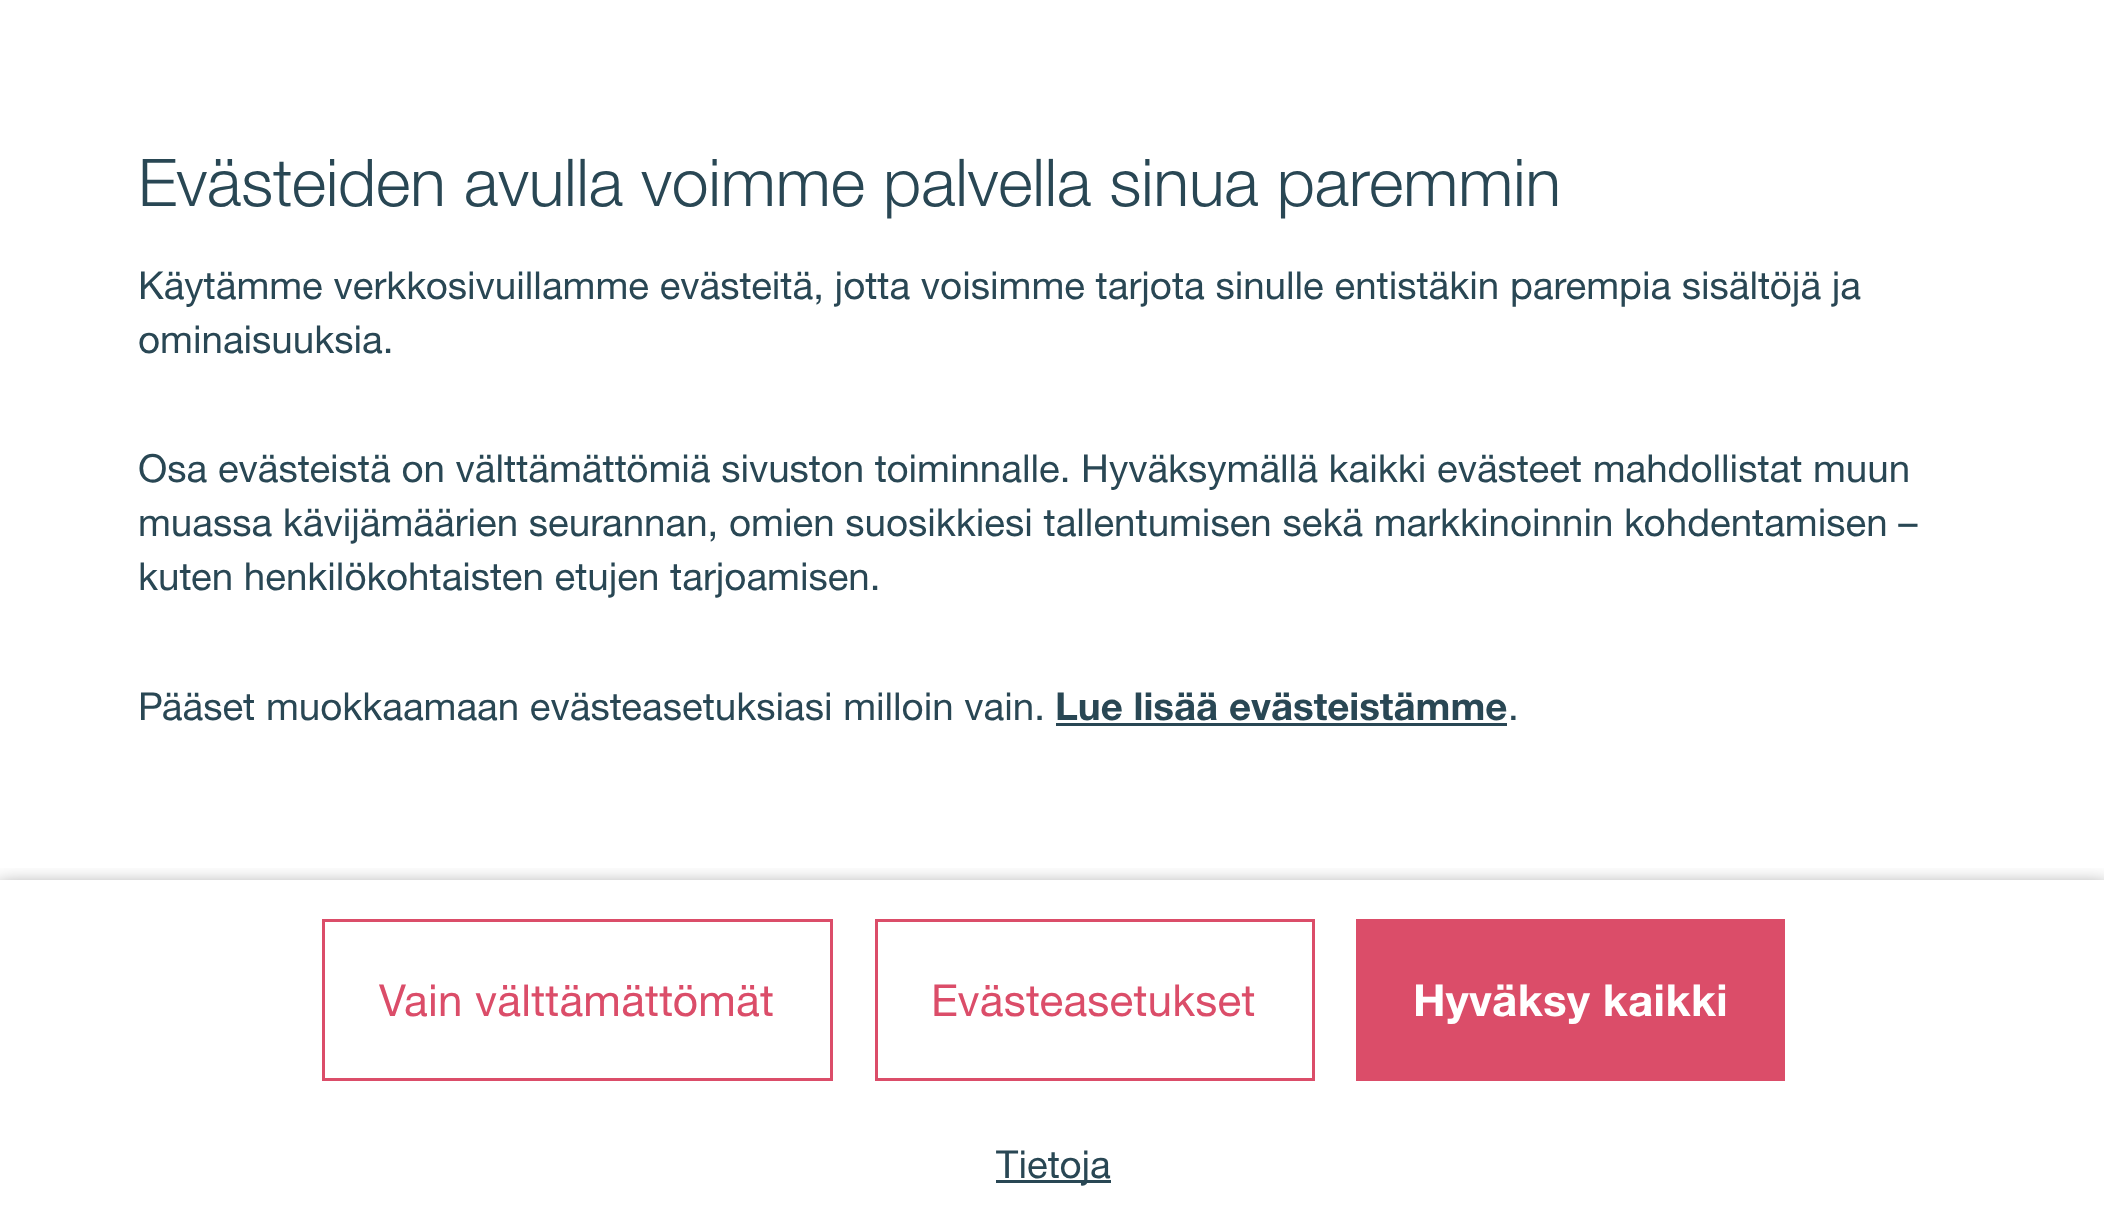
<svg xmlns="http://www.w3.org/2000/svg" width="2104" height="1228">
<style>
.a{font:300 66px 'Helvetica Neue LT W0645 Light';fill:#294754}
.b{font:38.5px 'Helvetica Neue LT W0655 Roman';fill:#294754}
.c{font:bold 38.5px 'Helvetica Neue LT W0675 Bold';fill:#294754}
.d{font:44px 'Helvetica Neue LT W0655 Roman';letter-spacing:0.25px;fill:#db4d69}
.e{font:bold 44px 'Helvetica Neue LT W0675 Bold';letter-spacing:0.25px;fill:#fff}
</style>
<defs>
<clipPath id="clip1"><path d="M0 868h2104v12H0z"/></clipPath>
</defs>
<rect width="100%" height="100%" fill="#fff"/>
<path fill="#294754" d="M1056 723h451v3H1056z"/>
<g clip-path="url(#clip1)">
<path fill="#00000099" filter="blur(11px)" d="M-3 888h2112v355H-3z"/>
</g>
<path fill="none" stroke="#db4d69" stroke-width="3" d="M323.5 920.5h508v159H323.5z"/>
<path fill="none" stroke="#db4d69" stroke-width="3" d="M876.5 920.5h437v159H876.5z"/>
<path fill="#db4d69" d="M1356 919h429v162H1356z"/>
<path fill="#294754" d="M996 1180h115v3H996z"/>
<text class="a" x="138" y="206">Evästeiden avulla voimme palvella sinua paremmin</text>
<text class="b" x="138" y="299">Käytämme verkkosivuillamme evästeitä, jotta voisimme tarjota sinulle entistäkin parempia sisältöjä ja</text>
<text class="b" x="138" y="353">ominaisuuksia.</text>
<text class="b" x="138" y="482">Osa evästeistä on välttämättömiä sivuston toiminnalle. Hyväksymällä kaikki evästeet mahdollistat muun</text>
<text class="b" x="138" y="536">muassa kävijämäärien seurannan, omien suosikkiesi tallentumisen sekä markkinoinnin kohdentamisen –</text>
<text class="b" x="138" y="590">kuten henkilökohtaisten etujen tarjoamisen.</text>
<text class="b" x="138" y="720">Pääset muokkaamaan evästeasetuksiasi milloin vain.</text>
<text class="c" x="1055" y="720">Lue lisää evästeistämme</text>
<text class="b" x="1508" y="720">.</text>
<text class="d" x="379" y="1016">Vain välttämättömät</text>
<text class="d" x="931" y="1016">Evästeasetukset</text>
<text class="e" x="1413" y="1016">Hyväksy kaikki</text>
<text class="b" x="996" y="1178">Tietoja</text>
</svg>
